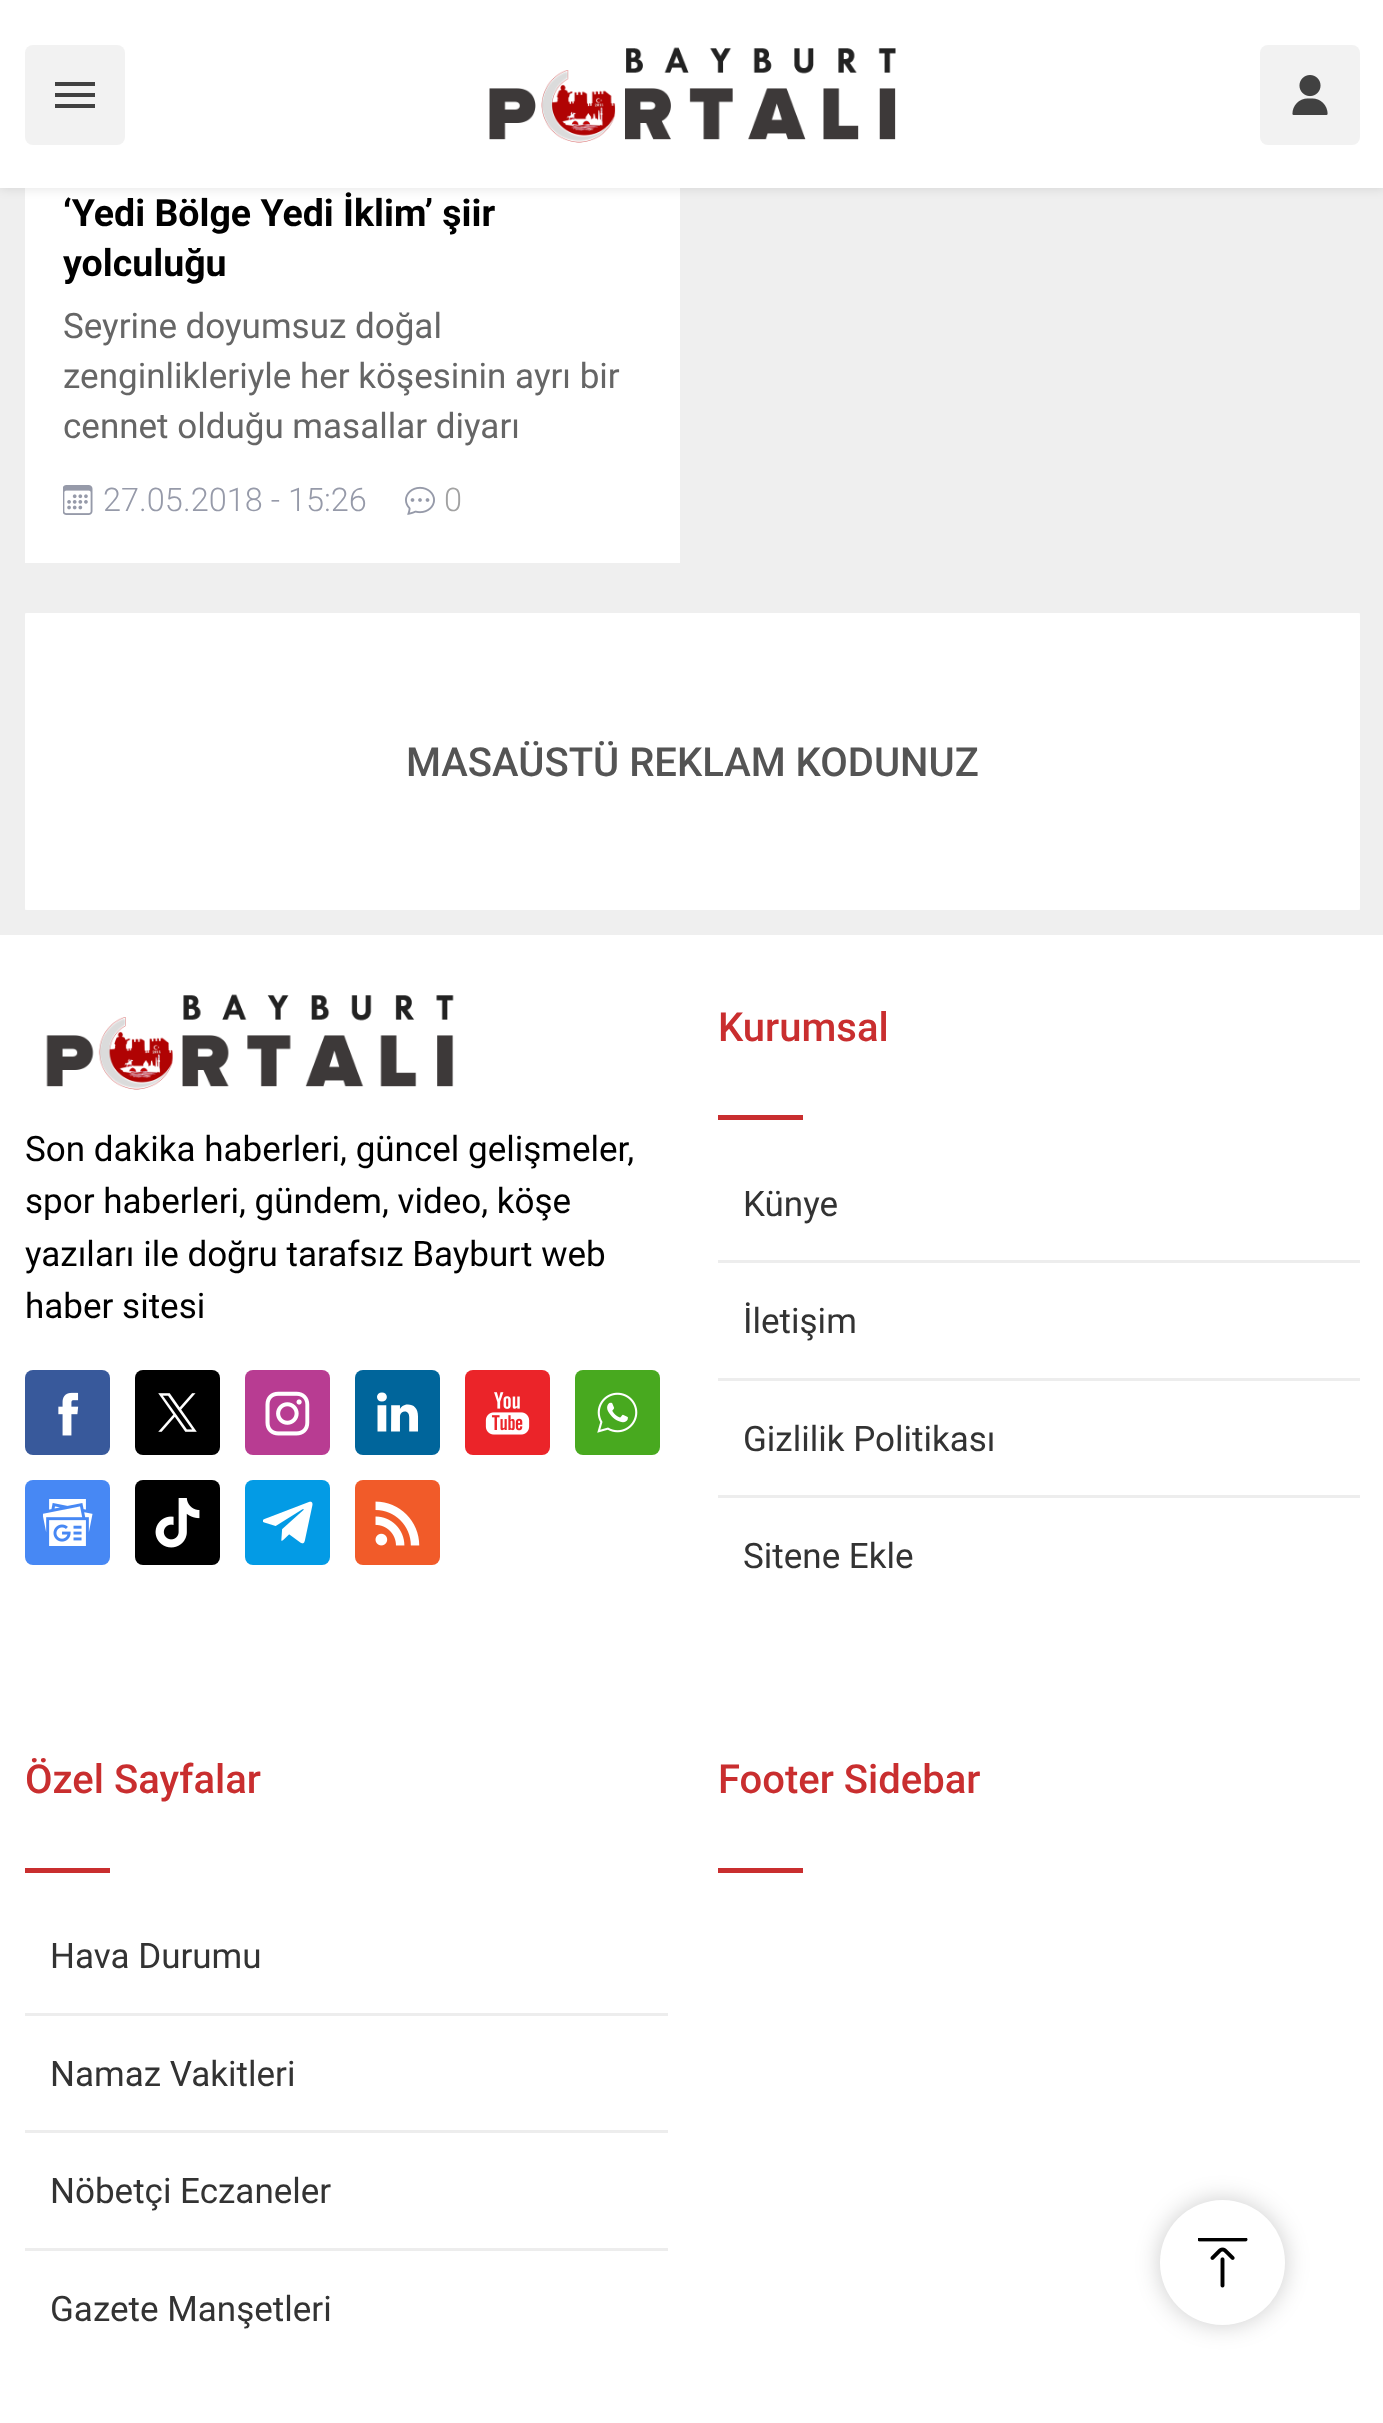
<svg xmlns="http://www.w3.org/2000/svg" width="1383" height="2423">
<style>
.a{font:bold 37.5px Roboto;fill:#000}
.b{font:35px Roboto;fill:#666}
.c{font:300 32.5px Roboto;fill:#969aa9}
.d{font:300 32.5px Roboto;fill:#a2a2a2}
.e{font:500 40px Roboto;fill:#545454}
.f{font:35px Roboto;fill:#000}
.g{font:500 40px Roboto;fill:#c92e2f}
.h{font:35px Roboto;fill:#333}
</style>
<rect width="100%" height="100%" fill="#efefef"/>
<path fill="#fff" d="M25 188h655v375H25z"/>
<path fill="#0000001f" filter="blur(6px)" d="M0 0h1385v188H0z"/>
<path fill="#fff" d="M0 0h1383v188H0z"/>
<rect fill="#f2f2f2" x="25" y="45" width="100" height="100" rx="8"/>
<path fill="#414141" d="M55 108h40v-4h-40zm0-11h40v-4h-40zm0-15v4h40v-4z"/>
<image href="1.png" x="489" y="47" width="407" height="96"/>
<rect fill="#f2f2f2" x="1260" y="45" width="100" height="100" rx="8"/>
<image href="2.png" x="1292" y="75" width="36" height="40"/>
<image href="3.png" x="63" y="485" width="30" height="30"/>
<image href="4.png" x="405" y="486" width="30" height="29"/>
<path fill="#fafafa" d="M25 613h1335v297H25z"/>
<rect fill="#fff" x="25" y="613" width="1335" height="297" rx="2.5"/>
<path fill="#fff" d="M0 935h1383v1488H0z"/>
<image href="5.png" x="46" y="994" width="408" height="96"/>
<rect fill="#38599b" x="25" y="1370" width="85" height="85" rx="8"/>
<image href="6.png" x="58" y="1392" width="21" height="44"/>
<rect fill="#000" x="135" y="1370" width="85" height="85" rx="8"/>
<image href="7.png" x="158" y="1393" width="39" height="39"/>
<rect fill="#b83c92" x="245" y="1370" width="85" height="85" rx="8"/>
<image href="8.png" x="265" y="1391" width="45" height="45"/>
<rect fill="#00659b" x="355" y="1370" width="85" height="85" rx="8"/>
<image href="9.png" x="377" y="1392" width="41" height="40"/>
<rect fill="#eb2429" x="465" y="1370" width="85" height="85" rx="8"/>
<image href="10.png" x="485" y="1392" width="45" height="43"/>
<rect fill="#48a91f" x="575" y="1370" width="85" height="85" rx="8"/>
<image href="11.png" x="597" y="1392" width="41" height="41"/>
<rect fill="#4788f4" x="25" y="1480" width="85" height="85" rx="8"/>
<image href="12.png" x="43" y="1499" width="50" height="47"/>
<rect fill="#000" x="135" y="1480" width="85" height="85" rx="8"/>
<image href="13.png" x="155" y="1498" width="45" height="50"/>
<rect fill="#039be5" x="245" y="1480" width="85" height="85" rx="8"/>
<image href="14.png" x="263" y="1501" width="50" height="43"/>
<rect fill="#f15b29" x="355" y="1480" width="85" height="85" rx="8"/>
<image href="15.png" x="375" y="1501" width="45" height="45"/>
<path fill="#c92e2f" d="M718 1115h85v5H718z"/>
<path fill="#ededed" d="M718 1260h642v3H718z"/>
<path fill="#ededed" d="M718 1378h642v3H718z"/>
<path fill="#ededed" d="M718 1495h642v3H718z"/>
<path fill="#c92e2f" d="M25 1868h85v5H25z"/>
<path fill="#ededed" d="M25 2013h643v3H25z"/>
<path fill="#ededed" d="M25 2130h643v3H25z"/>
<path fill="#ededed" d="M25 2248h643v3H25z"/>
<path fill="#c92e2f" d="M718 1868h85v5H718z"/>
<rect fill="#00000033" filter="blur(12.5px)" x="1160" y="2200" width="125" height="125" rx="62.5"/>
<circle fill="#fff" cx="1222.5" cy="2262.5" r="62.5"/>
<image href="16.png" x="1198" y="2238" width="50" height="50"/>
<text class="a" x="63" y="226">‘Yedi Bölge Yedi İklim’ şiir</text>
<text class="a" x="63" y="276">yolculuğu</text>
<text class="b" x="63" y="338">Seyrine doyumsuz doğal</text>
<text class="b" x="63" y="388">zenginlikleriyle her köşesinin ayrı bir</text>
<text class="b" x="63" y="438">cennet olduğu masallar diyarı</text>
<text class="c" x="103" y="511">27.05.2018 - 15:26</text>
<text class="d" x="444" y="511">0</text>
<text class="e" x="406" y="776">MASAÜSTÜ REKLAM KODUNUZ</text>
<text class="f" x="25" y="1161">Son dakika haberleri, güncel gelişmeler,</text>
<text class="f" x="25" y="1213">spor haberleri, gündem, video, köşe</text>
<text class="f" x="25" y="1266">yazıları ile doğru tarafsız Bayburt web</text>
<text class="f" x="25" y="1318">haber sitesi</text>
<text class="g" x="718" y="1041">Kurumsal</text>
<text class="h" x="743" y="1216">Künye</text>
<text class="h" x="743" y="1333">İletişim</text>
<text class="h" x="743" y="1451">Gizlilik Politikası</text>
<text class="h" x="743" y="1568">Sitene Ekle</text>
<text class="g" x="25" y="1793">Özel Sayfalar</text>
<text class="h" x="50" y="1968">Hava Durumu</text>
<text class="h" x="50" y="2086">Namaz Vakitleri</text>
<text class="h" x="50" y="2203">Nöbetçi Eczaneler</text>
<text class="h" x="50" y="2321">Gazete Manşetleri</text>
<text class="g" x="718" y="1793">Footer Sidebar</text>
</svg>
